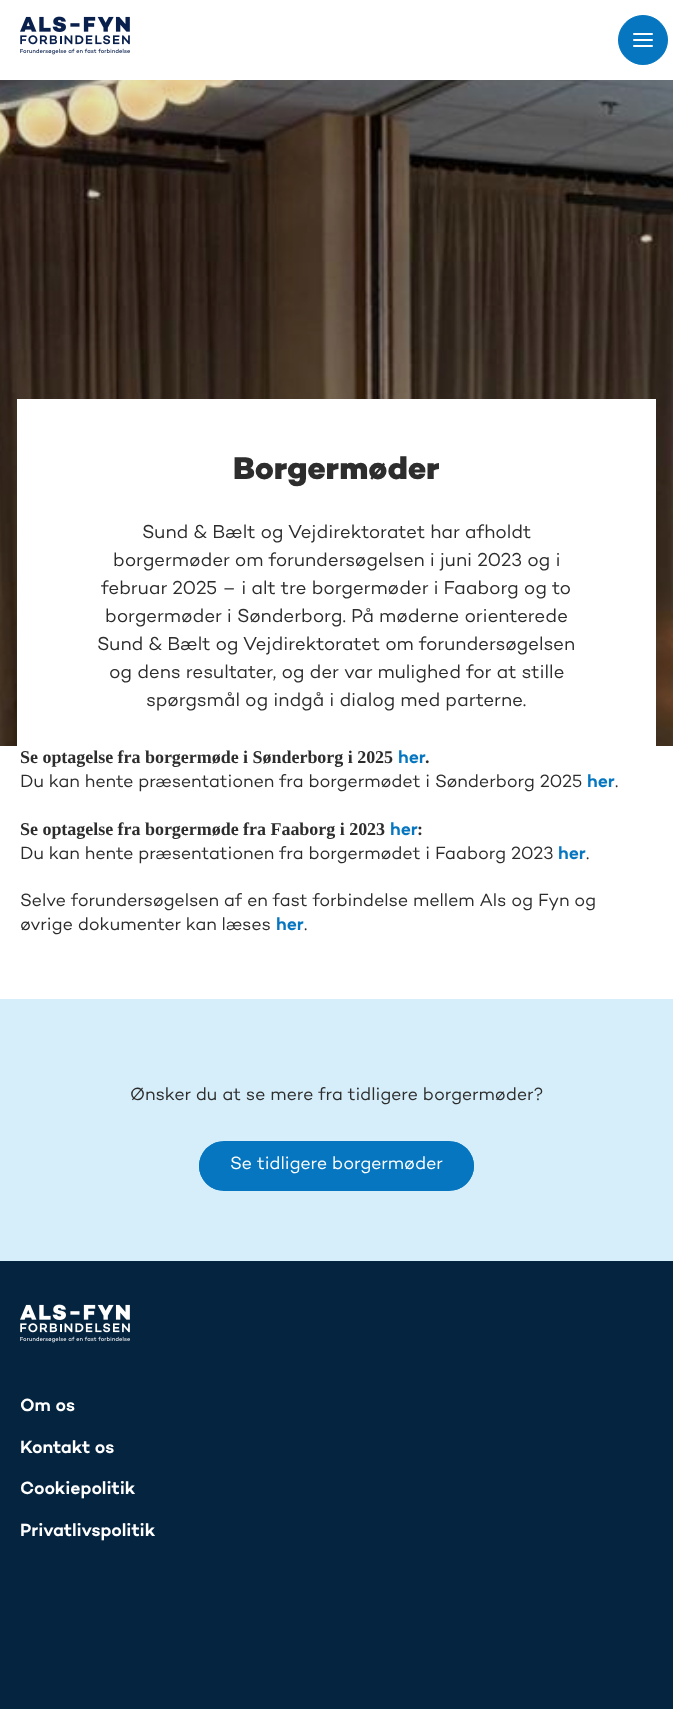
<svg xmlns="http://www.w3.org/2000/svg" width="688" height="1709">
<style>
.a{font:800 32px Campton;letter-spacing:-0.03px;fill:#2d2d2d}
.b{font:19px 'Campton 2';letter-spacing:-0.03px;fill:#2d2d2d}
.c{font:bold 18px Liberation Serif;letter-spacing:-0.03px;fill:#2d2d2d}
.d{font:18px Campton;letter-spacing:-0.03px;fill:#0576bf}
.e{font:18px 'Campton 2';letter-spacing:-0.03px;fill:#2d2d2d}
.f{font:18px 'Campton 2';letter-spacing:-0.03px;fill:#fff}
.g{font:18px Campton;letter-spacing:-0.03px;fill:#fff}
</style>
<defs>
<clipPath id="clip1"><rect x="199" y="1141" width="275" height="50" rx="25"/></clipPath>
</defs>
<rect width="100%" height="100%" fill="#fff"/>
<image href="1.png" x="20" y="16" width="110" height="39"/>
<circle fill="#0576bf" stroke="#0576bf" cx="643" cy="40" r="24.5"/>
<rect fill="#fff" x="633" y="33" width="20" height="2" rx="1"/>
<rect fill="#fff" x="633" y="39" width="20" height="2" rx="1"/>
<rect fill="#fff" x="633" y="45" width="20" height="2" rx="1"/>
<image href="2.png" x="0" y="80" width="673" height="666"/>
<path fill="#fff" d="M17 399h639v347H17z"/>
<path fill="#d6eefa" d="M0 999h673v262H0z"/>
<g clip-path="url(#clip1)">
<path fill="#0576bf" d="M199 1142h275v48H199z"/>
</g>
<rect fill="none" stroke="#0576bf" x="199.5" y="1141.5" width="274" height="49" rx="24.5"/>
<path fill="#052440" d="M0 1261h673v448H0z"/>
<image href="3.png" x="20" y="1304" width="110" height="39"/>
<text class="a" x="233" y="479">Borgermøder</text>
<text class="b" x="142" y="538">Sund &amp; Bælt og Vejdirektoratet har afholdt</text>
<text class="b" x="113" y="566">borgermøder om forundersøgelsen i juni 2023 og i</text>
<text class="b" x="101" y="594">februar 2025 – i alt tre borgermøder i Faaborg og to</text>
<text class="b" x="105" y="622">borgermøder i Sønderborg. På møderne orienterede</text>
<text class="b" x="97" y="650">Sund &amp; Bælt og Vejdirektoratet om forundersøgelsen</text>
<text class="b" x="109" y="678">og dens resultater, og der var mulighed for at stille</text>
<text class="b" x="146" y="706">spørgsmål og indgå i dialog med parterne.</text>
<text class="c" x="20" y="763">Se optagelse fra borgermøde i Sønderborg i 2025</text>
<text class="d" x="398" y="763">her</text>
<text class="c" x="425" y="763">.</text>
<text class="e" x="20" y="787">Du kan hente præsentationen fra borgermødet i Sønderborg 2025</text>
<text class="d" x="587" y="787">her</text>
<text class="e" x="615" y="787">.</text>
<text class="c" x="20" y="835">Se optagelse fra borgermøde fra Faaborg i 2023</text>
<text class="d" x="390" y="835">her</text>
<text class="c" x="417" y="835">:</text>
<text class="e" x="20" y="859">Du kan hente præsentationen fra borgermødet i Faaborg 2023</text>
<text class="d" x="558" y="859">her</text>
<text class="e" x="586" y="859">.</text>
<text class="e" x="20" y="906">Selve forundersøgelsen af en fast forbindelse mellem Als og Fyn og</text>
<text class="e" x="20" y="930">øvrige dokumenter kan læses</text>
<text class="d" x="276" y="930">her</text>
<text class="e" x="304" y="930">.</text>
<text class="e" x="130" y="1100">Ønsker du at se mere fra tidligere borgermøder?</text>
<text class="f" x="230" y="1169">Se tidligere borgermøder</text>
<text class="g" x="20" y="1411">Om os</text>
<text class="g" x="20" y="1453">Kontakt os</text>
<text class="g" x="20" y="1494">Cookiepolitik</text>
<text class="g" x="20" y="1536">Privatlivspolitik</text>
</svg>
